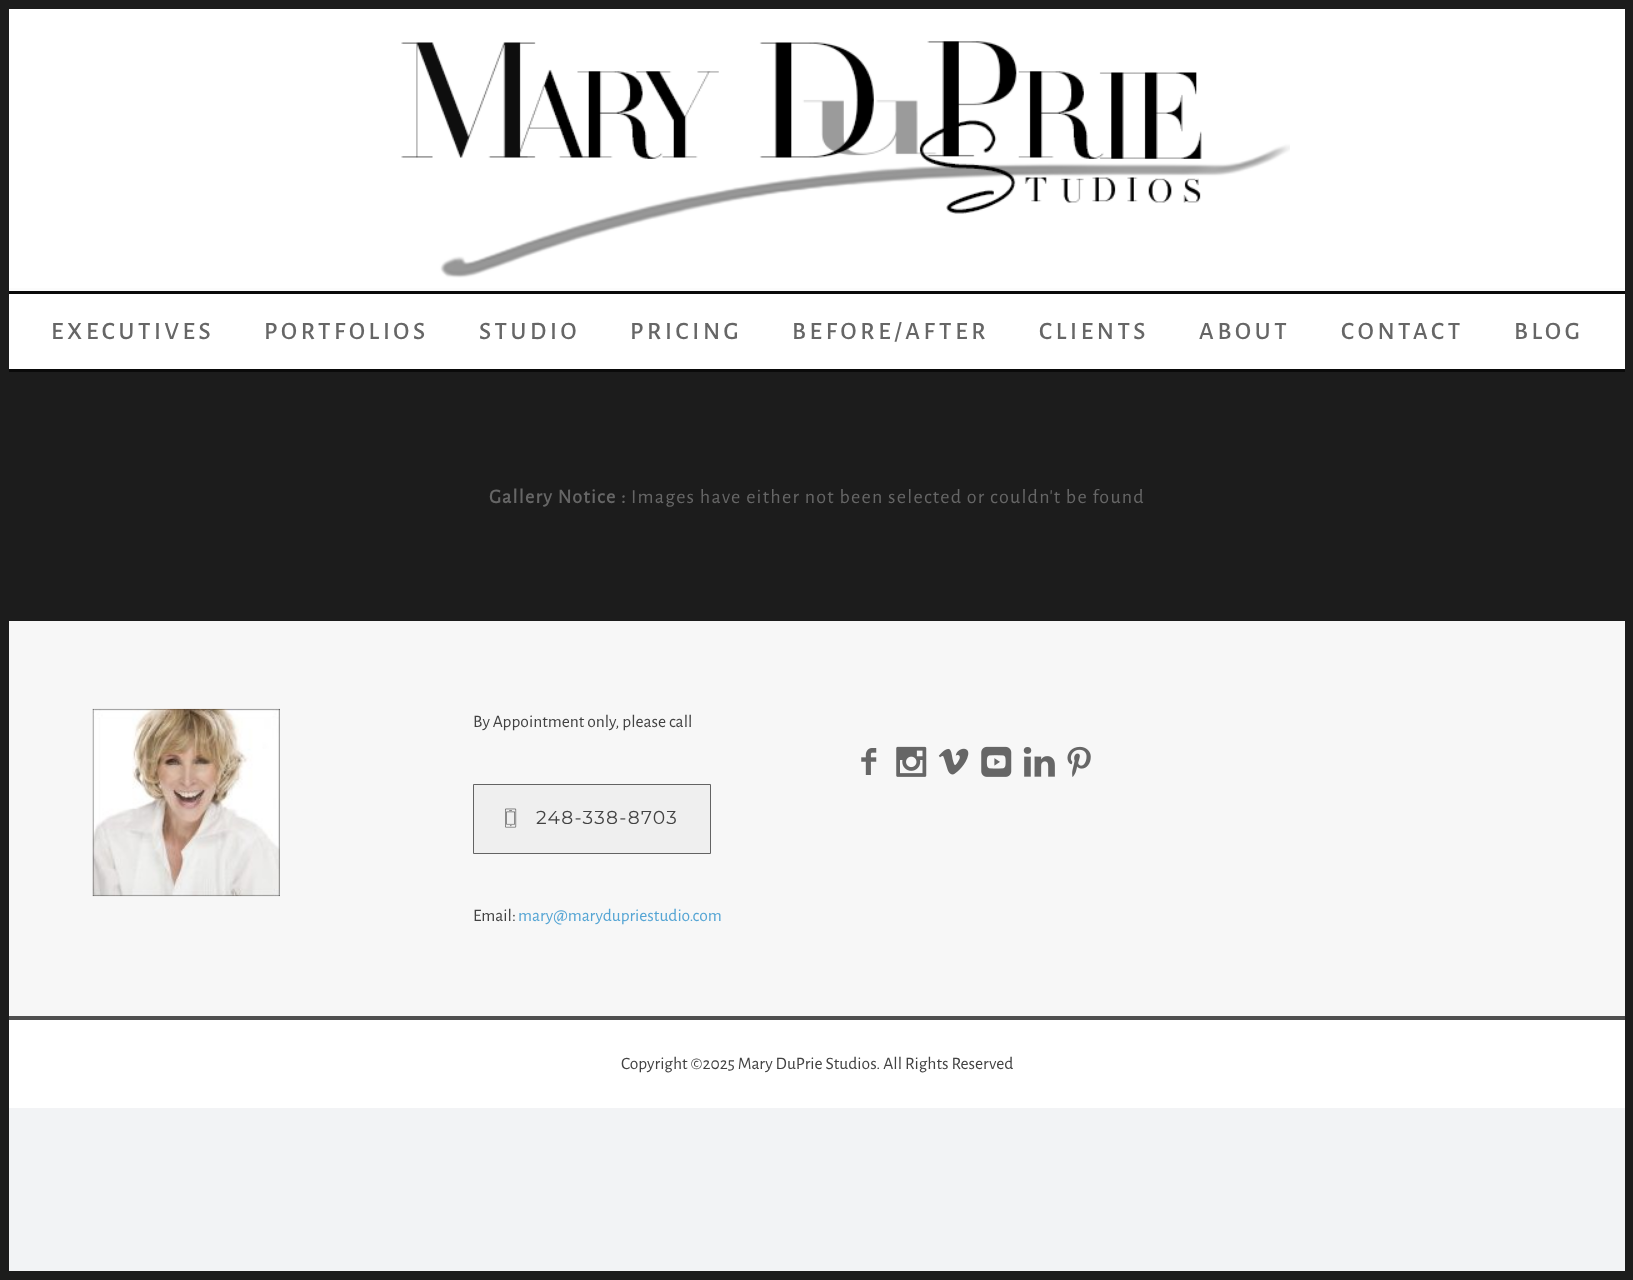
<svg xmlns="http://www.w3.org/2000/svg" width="1633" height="1280">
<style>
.a{font:500 25px Alegreya Sans SC;letter-spacing:3.75px;fill:#666}
.b{font:bold 20px Alegreya Sans;letter-spacing:1.25px;fill:#666}
.c{font:20px Alegreya Sans;letter-spacing:1.25px;fill:#666}
.d{font:17.5px Alegreya Sans;fill:#424242}
.e{font:18.75px Montserrat;letter-spacing:1.25px;fill:#424242}
.f{font:17.5px Alegreya Sans;fill:#55a5d4}
</style>
<rect width="100%" height="100%" fill="#f2f3f5"/>
<path fill="#1c1c1c" d="M0 0h9v1280H0z"/>
<path fill="#1c1c1c" d="M9 0h1616v9H9z"/>
<path fill="#1c1c1c" d="M1625 0h8v1271H1625z"/>
<path fill="#1c1c1c" d="M9 1271h1624v9H9z"/>
<path fill="#fff" d="M9 9h1616v360H9z"/>
<image href="1.png" x="401" y="41" width="889" height="237"/>
<path fill="#fcfcfc" d="M9 288h1616v3H9z"/>
<path fill="#0a0a0a" d="M9 291h1616v3H9z"/>
<path fill="#0a0a0a" d="M9 369h1616v3H9z"/>
<path fill="#1c1c1c" d="M9 372h1616v249H9z"/>
<path fill="#f7f7f7" d="M9 621h1616v395H9z"/>
<image href="2.png" x="92" y="708" width="188" height="189"/>
<path fill="#efefef" stroke="#636363" d="M473.5 784.5h237v69H473.5z"/>
<image href="3.png" x="505" y="808" width="12" height="20"/>
<image href="4.png" x="861" y="748" width="16" height="27"/>
<image href="5.png" x="896" y="746" width="31" height="31"/>
<image href="6.png" x="938" y="748" width="31" height="27"/>
<image href="7.png" x="981" y="746" width="31" height="31"/>
<image href="8.png" x="1023" y="747" width="32" height="30"/>
<image href="9.png" x="1067" y="746" width="24" height="31"/>
<path fill="#fff" d="M9 1020h1616v88H9z"/>
<path fill="#4f4f4f" d="M9 1016h1616v4H9z"/>
<text class="a" x="51" y="339">EXECUTIVES</text>
<text class="a" x="264" y="339">PORTFOLIOS</text>
<text class="a" x="479" y="339">STUDIO</text>
<text class="a" x="630" y="339">PRICING</text>
<text class="a" x="792" y="339">BEFORE/AFTER</text>
<text class="a" x="1039" y="339">CLIENTS</text>
<text class="a" x="1199" y="339">ABOUT</text>
<text class="a" x="1341" y="339">CONTACT</text>
<text class="a" x="1514" y="339">BLOG</text>
<text class="b" x="489" y="503">Gallery Notice :</text>
<text class="c" x="631" y="503">Images have either not been selected or couldn't be found</text>
<text class="d" x="473" y="727">By Appointment only, please call</text>
<text class="e" x="536" y="824">248-338-8703</text>
<text class="d" x="473" y="921">Email:</text>
<text class="f" x="518" y="921">mary@marydupriestudio.com</text>
<text class="d" x="621" y="1069">Copyright ©2025 Mary DuPrie Studios. All Rights Reserved</text>
</svg>
